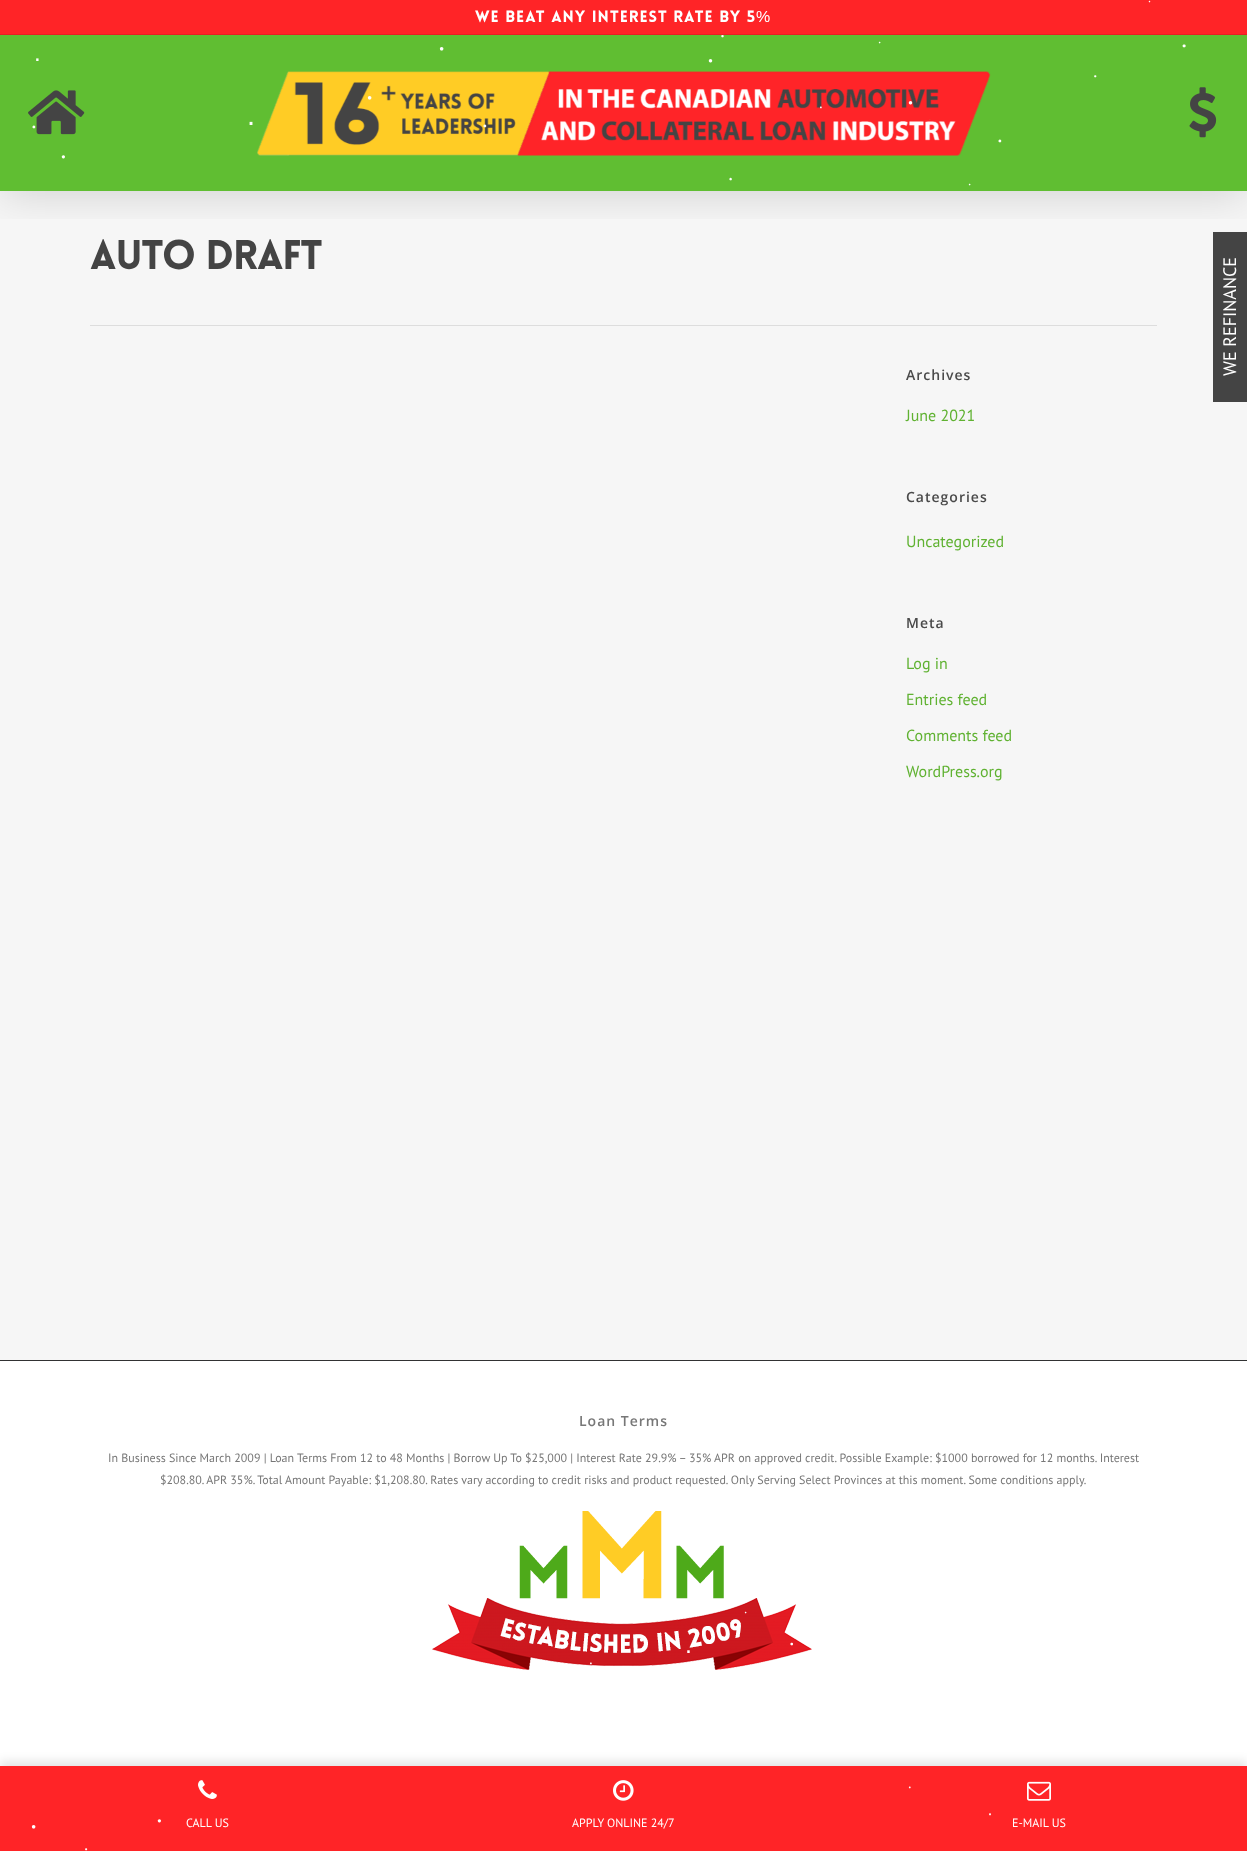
<svg xmlns="http://www.w3.org/2000/svg" width="1247" height="1851">
<style>
.a{font:12px Liberation Serif;fill:#fff}
.b{font:20px Liberation Serif;fill:#fff}
.c{font:13px Liberation Serif;fill:#fff}
.d{font:25px Liberation Serif;fill:#fff}
.e{font:29px Liberation Serif;fill:#fff}
.f{font:24px Liberation Sans;fill:#fff}
.g{font:28px Liberation Serif;fill:#fff}
.h{font:18px Liberation Serif;fill:#fff}
.i{font:15px Liberation Serif;fill:#fff}
.j{font:29px Liberation Sans;fill:#fff}
.k{font:23px Liberation Serif;fill:#fff}
.l{font:27px Liberation Serif;fill:#fff}
.m{font:21px Liberation Serif;fill:#fff}
.n{font:22px Liberation Serif;fill:#fff}
.o{font:25px Liberation Sans;fill:#fff}
.p{font:14px Liberation Serif;fill:#fff}
.q{font:16px Liberation Serif;fill:#fff}
.r{font:17px Liberation Serif;fill:#fff}
.s{font:900 16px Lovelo;letter-spacing:1px;fill:#fff}
.t{font:16px Liberation Sans;letter-spacing:1px;fill:#fff}
.u{font:900 40.5px Lovelo;letter-spacing:-1px;fill:#444}
.v{font:600 14px Open Sans;letter-spacing:1px;fill:#4a4a4a}
.w{font:16px PT Sans;fill:#60b232}
.x{font:600 14px Open Sans;letter-spacing:1px;fill:#777}
.y{font:12px PT Sans;fill:#777}
.z{font:18px PT Sans;fill:#fff}
.a1{font:12px PT Sans;fill:#fff}
</style>
<defs>
<clipPath id="clip1"><path d="M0 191h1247v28H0z"/></clipPath>
</defs>
<rect width="100%" height="100%" fill="#60be32"/>
<path fill="#f6f6f6" d="M0 191h1247v1169H0z"/>
<g clip-path="url(#clip1)">
<path fill="#00000026" filter="blur(22.5px)" d="M0 3h1247v191H0z"/>
</g>
<path fill="#ff2427" d="M0 0h1247v34H0z"/>
<path fill="#e62023" d="M0 34h1247v1H0z"/>
<image href="1.png" x="28" y="90" width="57" height="45"/>
<image href="2.png" x="257" y="71" width="734" height="85"/>
<image href="3.png" x="1189" y="87" width="28" height="51"/>
<path fill="#ddd" d="M90 325h1067v1H90z"/>
<path fill="#313233" d="M0 1360h1247v1H0z"/>
<path fill="#fff" d="M0 1361h1247v405H0z"/>
<image href="4.png" x="432" y="1511" width="380" height="159"/>
<path fill="#444" d="M1213 232h34v170H1213z"/>
<path fill="#0000001a" filter="blur(5px)" d="M0 1761h1247v85H0z"/>
<path fill="#ff2427" d="M0 1766h1247v85H0z"/>
<image href="5.png" x="198" y="1780" width="19" height="19"/>
<image href="6.png" x="613" y="1780" width="21" height="21"/>
<image href="7.png" x="1027" y="1781" width="24" height="20"/>
<text class="a" x="1148" y="2">.</text>
<text class="b" x="720" y="37">.</text>
<text class="c" x="878" y="43">.</text>
<text class="d" x="1181" y="47">.</text>
<text class="e" x="438" y="50">.</text>
<text class="f" x="34" y="61">.</text>
<text class="g" x="707" y="62">.</text>
<text class="h" x="1093" y="77">.</text>
<text class="e" x="366" y="99">.</text>
<text class="g" x="907" y="104">.</text>
<text class="i" x="819" y="108">.</text>
<text class="j" x="247" y="125">.</text>
<text class="k" x="31" y="128">.</text>
<text class="k" x="482" y="127">.</text>
<text class="k" x="997" y="142">.</text>
<text class="l" x="60" y="158">.</text>
<text class="m" x="728" y="180">.</text>
<text class="c" x="968" y="185">.</text>
<text class="c" x="744" y="1613">.</text>
<text class="e" x="638" y="1641">.</text>
<text class="n" x="789" y="1645">.</text>
<text class="o" x="685" y="1653">.</text>
<text class="i" x="589" y="1664">.</text>
<text class="p" x="908" y="1788">.</text>
<text class="q" x="988" y="1815">.</text>
<text class="l" x="156" y="1822">.</text>
<text class="e" x="30" y="1828">.</text>
<text class="r" x="84" y="1850">.</text>
<text class="s" x="475" y="22">WE BEAT ANY INTEREST RATE BY 5</text>
<text class="t" x="756" y="22">%</text>
<text class="u" x="90" y="269">Auto Draft</text>
<text class="v" x="906" y="380">Archives</text>
<text class="w" x="906" y="421">June 2021</text>
<text class="v" x="906" y="502">Categories</text>
<text class="w" x="906" y="547">Uncategorized</text>
<text class="v" x="906" y="628">Meta</text>
<text class="w" x="906" y="669">Log in</text>
<text class="w" x="906" y="705">Entries feed</text>
<text class="w" x="906" y="741">Comments feed</text>
<text class="w" x="906" y="777">WordPress.org</text>
<text class="x" x="579" y="1426">Loan Terms</text>
<text class="y" x="108" y="1462">In Business Since March 2009 | Loan Terms From 12 to 48 Months | Borrow Up To $25,000 | Interest Rate 29.9% – 35% APR on approved credit. Possible Example: $1000 borrowed for 12 months. Interest</text>
<text class="y" x="160" y="1484">$208.80. APR 35%. Total Amount Payable: $1,208.80. Rates vary according to credit risks and product requested. Only Serving Select Provinces at this moment. Some conditions apply.</text>
<text class="z" x="1236" y="376" transform="rotate(-90 1236 376)">WE REFINANCE</text>
<text class="a1" x="186" y="1827">CALL US</text>
<text class="a1" x="572" y="1827">APPLY ONLINE 24/7</text>
<text class="a1" x="1012" y="1827">E-MAIL US</text>
</svg>
